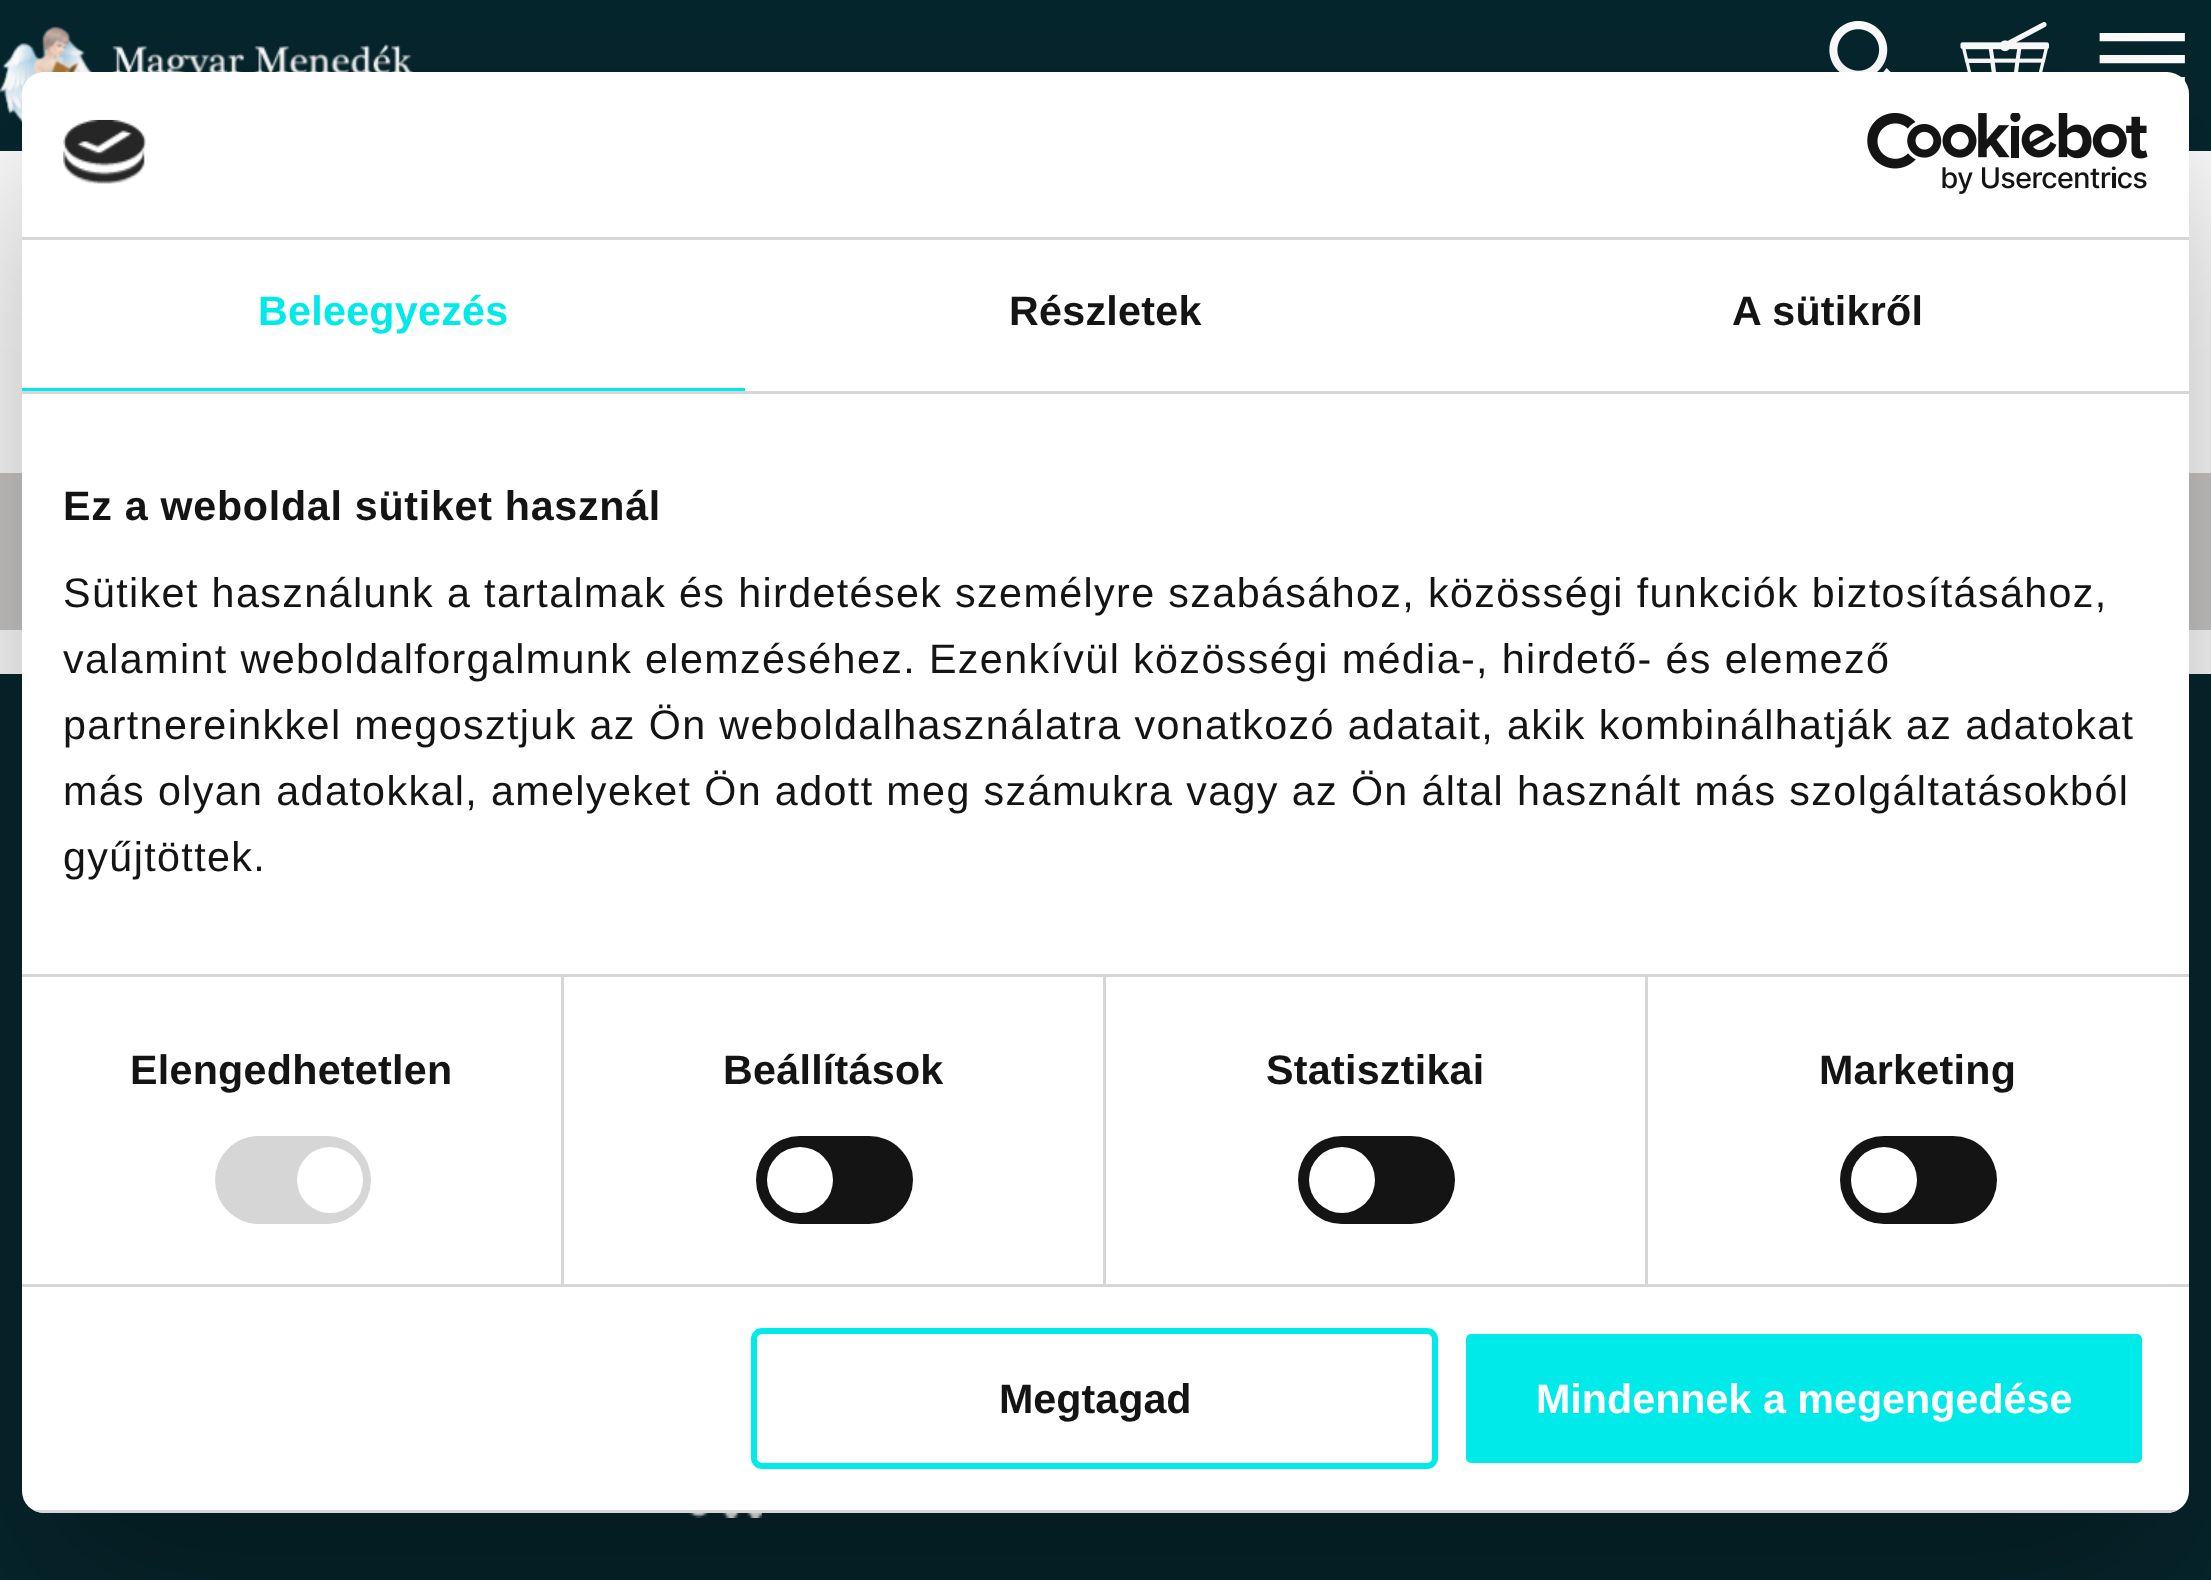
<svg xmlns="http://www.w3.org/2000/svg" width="2211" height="1580">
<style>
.a{font:bold 41.25px Liberation Sans;letter-spacing:0.25px;fill:#01eaea}
.b{font:bold 41.25px Liberation Sans;letter-spacing:0.25px;fill:#141414}
.c{font:bold 41.25px Liberation Sans;letter-spacing:0.7px;fill:#141414}
.d{font:41.25px Liberation Sans;letter-spacing:1.38px;fill:#141414}
.e{font:bold 41.25px Liberation Sans;fill:#141414}
.f{font:bold 41.25px Liberation Sans;fill:#fff}
</style>
<defs>
<clipPath id="clip1"><rect x="22" y="72" width="2167" height="1441" rx="22"/></clipPath>
</defs>
<rect width="100%" height="100%" fill="#fff"/>
<path fill="#06262d" d="M0 0h2211v151H0z"/>
<image href="1.png" x="0" y="26" width="413" height="97"/>
<image href="2.png" x="1829" y="21" width="62" height="51"/>
<image href="3.png" x="1960" y="22" width="90" height="50"/>
<image href="4.png" x="2099" y="33" width="86" height="49"/>
<path fill="#cccac8" d="M0 473h2211v157H0z"/>
<path fill="#06262d" d="M0 674h2211v906H0z"/>
<image href="7.png" x="689" y="1513" width="73" height="5"/>
<rect fill="#0000004d" filter="blur(93.5px)" x="22" y="160" width="2167" height="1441" rx="22"/>
<rect fill="#fff" x="22" y="72" width="2167" height="1441" rx="22"/>
<path fill="#d6d6d6" d="M22 237h2167v3H22z"/>
<image href="5.png" x="63" y="119" width="83" height="65"/>
<image href="6.png" x="1867" y="113" width="281" height="81"/>
<path fill="#d6d6d6" d="M22 391h2167v3H22z"/>
<path fill="#01eaea" d="M22 388h723v3H22z"/>
<path fill="#d6d6d6" d="M561 976h3v308H561z"/>
<path fill="#d6d6d6" d="M1103 976h3v308H1103z"/>
<path fill="#d6d6d6" d="M1645 976h3v308H1645z"/>
<path fill="#d6d6d6" d="M22 974h2167v3H22z"/>
<path fill="#d6d6d6" d="M22 1284h2167v3H22z"/>
<rect fill="#d6d6d6" x="215" y="1136" width="156" height="88" rx="44"/>
<circle fill="#fff" cx="330" cy="1180" r="33"/>
<rect fill="#141414" x="756" y="1136" width="157" height="88" rx="44"/>
<circle fill="#fff" cx="800" cy="1180" r="33"/>
<rect fill="#141414" x="1298" y="1136" width="157" height="88" rx="44"/>
<circle fill="#fff" cx="1342" cy="1180" r="33"/>
<rect fill="#141414" x="1840" y="1136" width="157" height="88" rx="44"/>
<circle fill="#fff" cx="1884" cy="1180" r="33"/>
<g clip-path="url(#clip1)">
<path fill="#d6d6d6" d="M33 1510h2145v3H33z"/>
</g>
<rect fill="none" stroke="#01eaea" stroke-width="6" x="754" y="1331" width="681" height="135" rx="8"/>
<rect fill="#01eaea" stroke="#fff" stroke-width="6" x="1463" y="1331" width="682" height="135" rx="8"/>
<text class="a" x="258" y="325">Beleegyezés</text>
<text class="b" x="1009" y="325">Részletek</text>
<text class="b" x="1732" y="325">A sütikről</text>
<text class="c" x="63" y="520">Ez a weboldal sütiket használ</text>
<text class="d" x="63" y="607">Sütiket használunk a tartalmak és hirdetések személyre szabásához, közösségi funkciók biztosításához,</text>
<text class="d" x="63" y="673">valamint weboldalforgalmunk elemzéséhez. Ezenkívül közösségi média-, hirdető- és elemező</text>
<text class="d" x="63" y="739">partnereinkkel megosztjuk az Ön weboldalhasználatra vonatkozó adatait, akik kombinálhatják az adatokat</text>
<text class="d" x="63" y="805">más olyan adatokkal, amelyeket Ön adott meg számukra vagy az Ön által használt más szolgáltatásokból</text>
<text class="d" x="63" y="871">gyűjtöttek.</text>
<text class="b" x="130" y="1084">Elengedhetetlen</text>
<text class="b" x="723" y="1084">Beállítások</text>
<text class="b" x="1266" y="1084">Statisztikai</text>
<text class="b" x="1819" y="1084">Marketing</text>
<text class="e" x="999" y="1413">Megtagad</text>
<text class="f" x="1536" y="1413">Mindennek a megengedése</text>
</svg>
